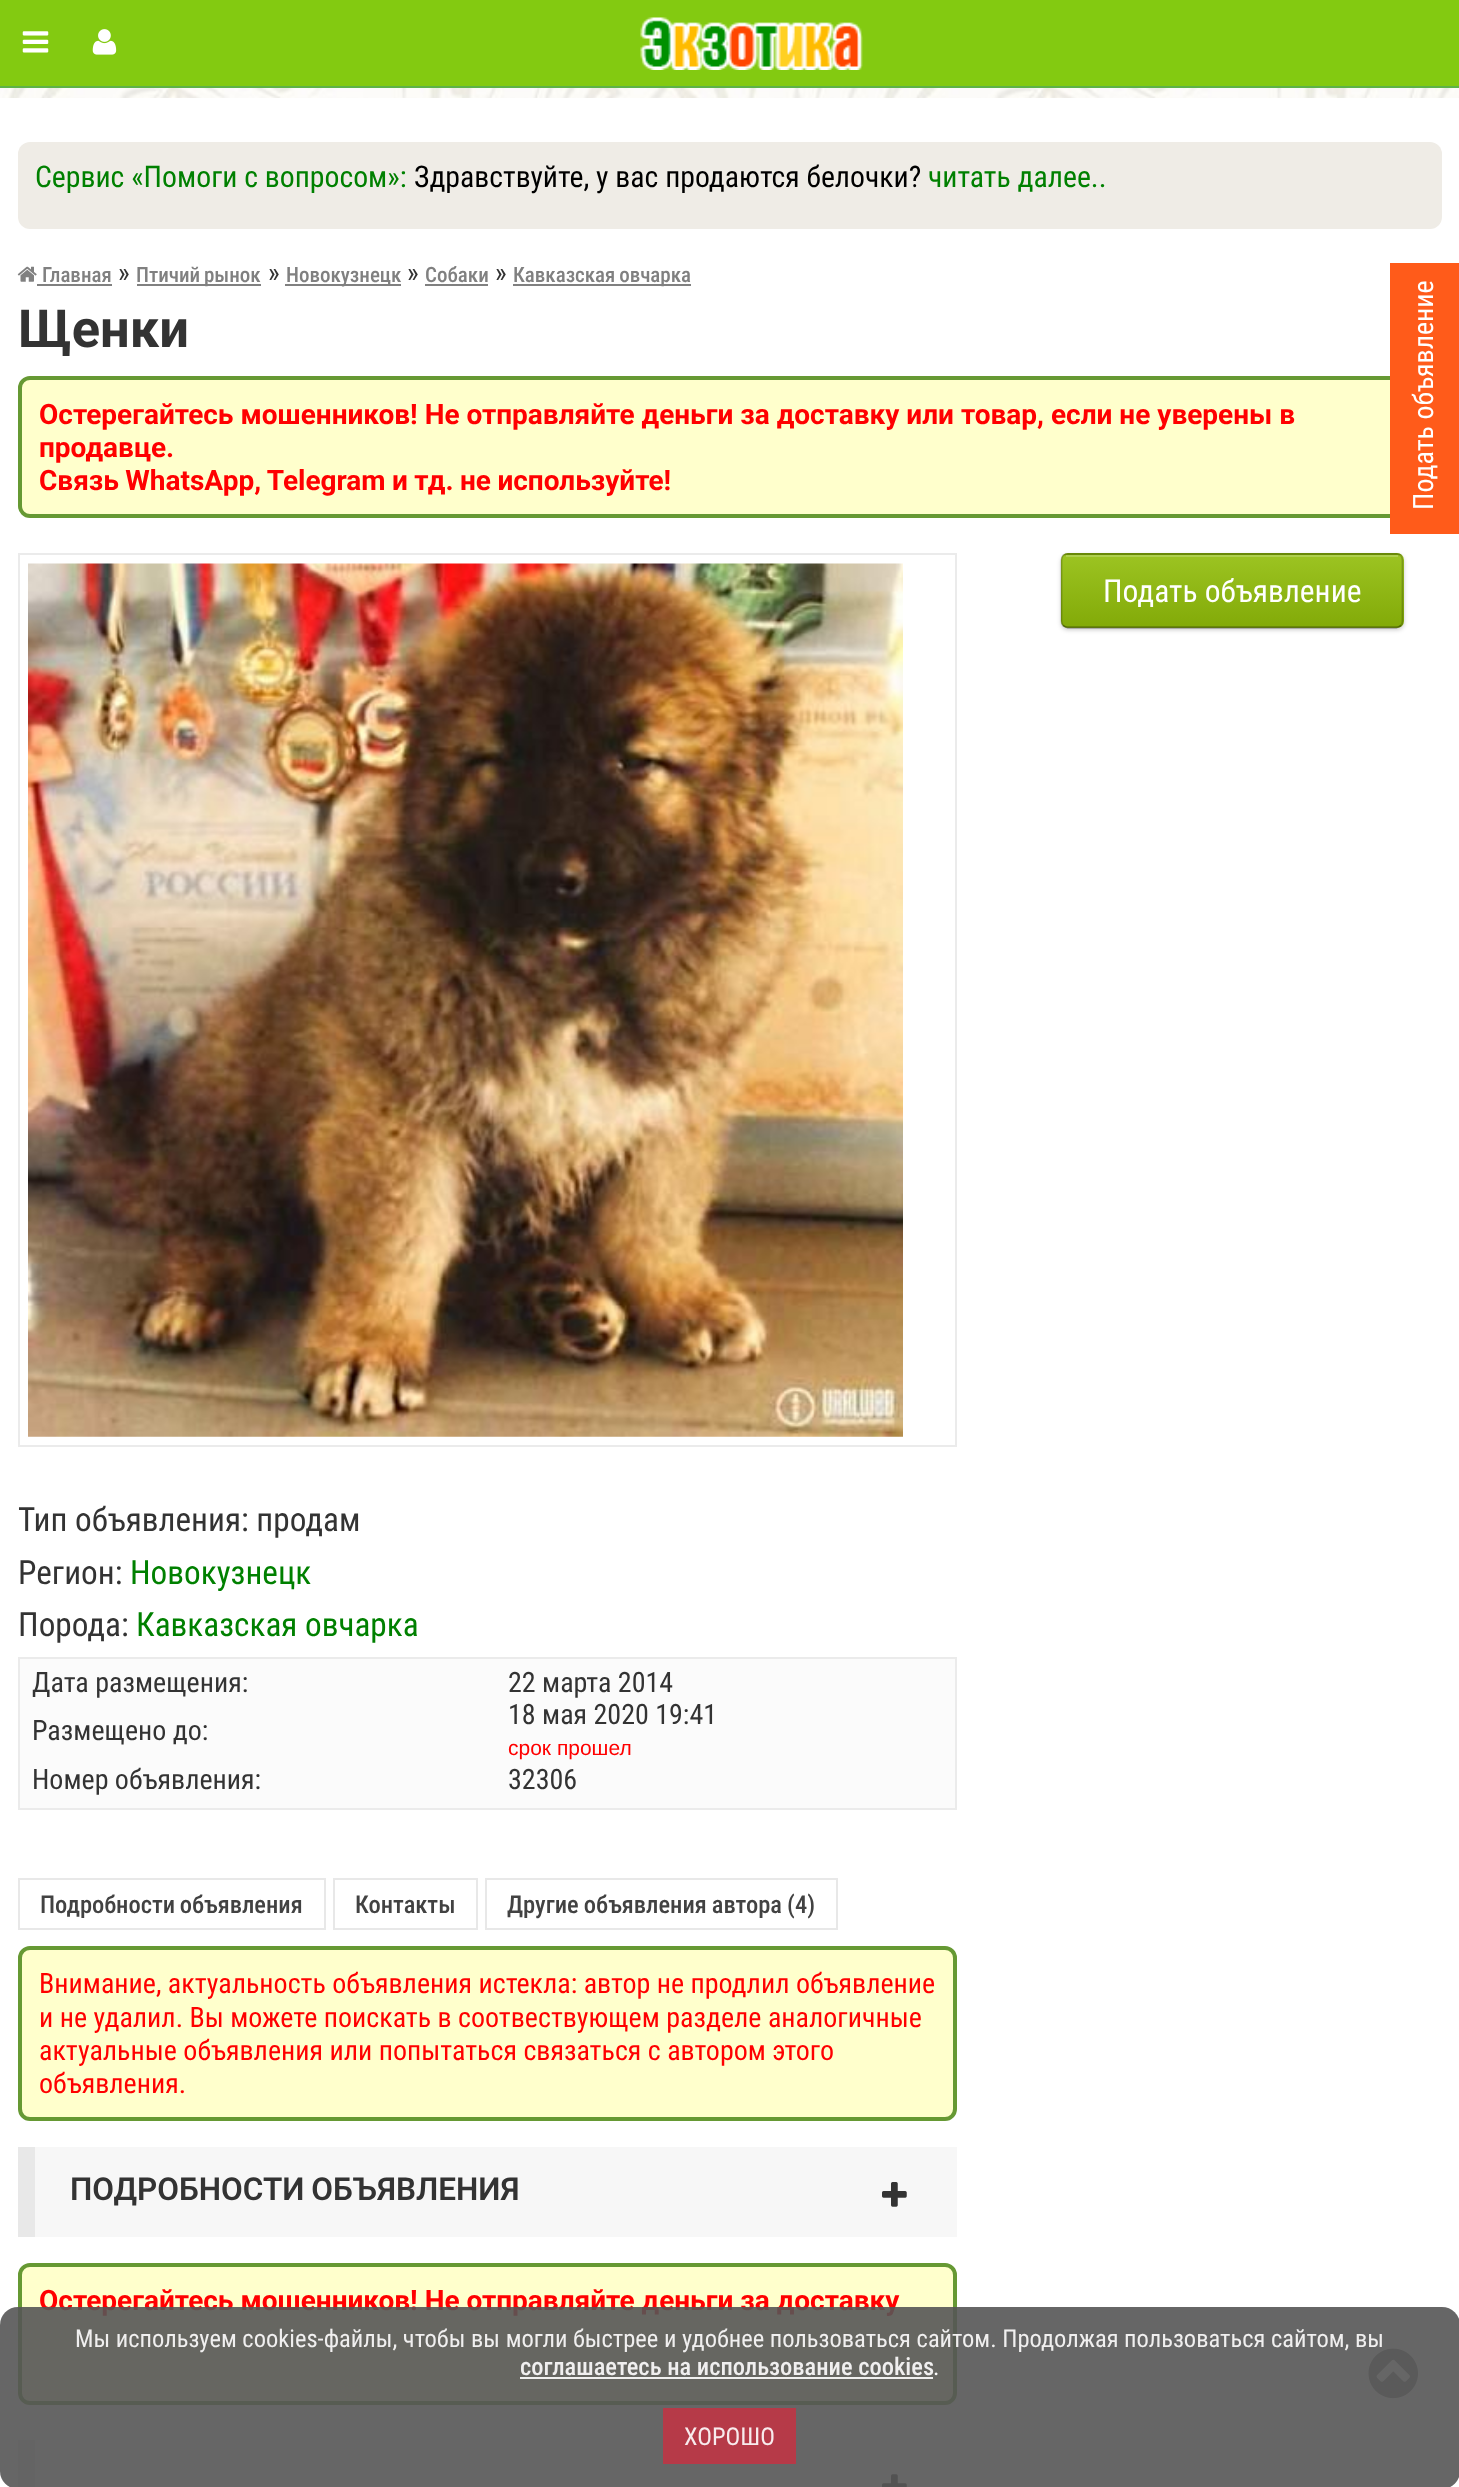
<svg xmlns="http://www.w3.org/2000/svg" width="1459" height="2487">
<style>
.a{font:29.75px Roboto Condensed;fill:#008000}
.b{font:29.75px Roboto Condensed;fill:#000}
.c{font:500 21px Roboto Condensed;fill:#808080}
.d{font:28px Roboto Condensed;fill:#333}
.e{font:bold 52.5px Roboto;fill:#333}
.f{font:bold 28px Roboto;fill:#f00}
.g{font:31.5px Roboto Condensed;fill:#fff}
.h{font:33.25px Roboto Condensed;fill:#333}
.i{font:33.25px Roboto Condensed;fill:#008000}
.j{font:21px Liberation Sans;fill:#f00}
.k{font:500 24.5px Roboto Condensed;fill:#424242}
.l{font:28px Roboto Condensed;fill:#f00}
.m{font:600 31.5px Roboto;fill:#333}
.n{font:28px Roboto Condensed;fill:#fff}
.o{font:24.5px Roboto Condensed;fill:#f0efef}
.p{font:500 24.5px Roboto Condensed;fill:#f0efef}
.q{font:24.5px Roboto Condensed;fill:#fff}
.r{font:24.5px Roboto Condensed;fill:#f8ebed}
</style>
<defs>
<clipPath id="clip1"><rect x="1061" y="553" width="343" height="75" rx="7"/></clipPath>
<linearGradient id="g1" gradientUnits="userSpaceOnUse" x1="1232" y1="555" x2="1232" y2="483"><stop offset="0" stop-color="#000" stop-opacity="0.1"/><stop offset="1" stop-color="#fff" stop-opacity="0.1"/></linearGradient>
<linearGradient id="g2" gradientUnits="userSpaceOnUse" x1="1232" y1="627" x2="1232" y2="555"><stop offset="0" stop-color="#000" stop-opacity="0.1"/><stop offset="1" stop-color="#fff" stop-opacity="0.1"/></linearGradient>
<linearGradient id="g3" gradientUnits="userSpaceOnUse" x1="1232" y1="698" x2="1232" y2="627"><stop offset="0" stop-color="#000" stop-opacity="0.1"/><stop offset="1" stop-color="#fff" stop-opacity="0.1"/></linearGradient>
</defs>
<rect width="100%" height="100%" fill="#fff"/>
<image href="1.png" x="0" y="88" width="1459" height="10"/>
<path fill="#83ca11" d="M0 0h1459v86H0z"/>
<path fill="#5db347" d="M0 86h1459v2H0z"/>
<image href="2.png" x="22" y="31" width="27" height="22"/>
<image href="3.png" x="92" y="29" width="25" height="26"/>
<image href="4.png" x="640" y="17" width="223" height="53"/>
<rect fill="#efece6" x="18" y="142" width="1424" height="87" rx="12"/>
<image href="5.png" x="17" y="266" width="20" height="16"/>
<path fill="#808080" d="M37 284h75v2H37z"/>
<path fill="#808080" d="M137 284h124v2H137z"/>
<path fill="#808080" d="M285 284h116v2H285z"/>
<path fill="#808080" d="M425 284h63v2H425z"/>
<path fill="#808080" d="M513 284h178v2H513z"/>
<rect fill="#ffc" stroke="#693" stroke-width="4" x="20" y="378" width="1420" height="138" rx="10"/>
<rect fill="#00000033" filter="blur(2px)" x="1061" y="555" width="343" height="75" rx="7"/>
<rect fill="#91bd09" x="1061" y="553" width="343" height="75" rx="7"/>
<g clip-path="url(#clip1)">
<path fill="url(#g1)" d="M1061 553h343v2H1061z"/>
<path fill="url(#g2)" d="M1061 555h343v72H1061z"/>
<path fill="url(#g3)" d="M1061 627h343v1H1061z"/>
</g>
<path fill="none" stroke="#00000066" stroke-width="1.8" d="M1401 625.5c-1.5 1-3 2-4.5 2h-329c-1.5 0-3-1-4.5-2"/>
<path fill="none" stroke="#00000033" stroke-width="1.8" d="M1063 625.5c-1-1-1.5-2.5-1.5-4.5v-61c0-1.5 .5-3 1.5-4.5c1.5-1 3-1.5 4.5-1.5h329c1.5 0 3 .5 4.5 1.5c1 1.5 1.5 3 1.5 4.5v61c0 2-.5 3.5-1.5 4.5"/>
<path fill="#afcf4d" d="M1066 555h332v2H1066z"/>
<path fill="none" stroke="#ebebeb" stroke-width="2" d="M19 554h937v892H19z"/>
<image href="6.png" x="28" y="563" width="875" height="874"/>
<path fill="#fbfbfb" stroke="#ebebeb" stroke-width="2" d="M19 1658h937v151H19z"/>
<path fill="none" stroke="#e8e8e8" stroke-width="2" d="M19 1879h306v50H19z"/>
<path fill="none" stroke="#e8e8e8" stroke-width="2" d="M334 1879h143v50H334z"/>
<path fill="none" stroke="#e8e8e8" stroke-width="2" d="M486 1879h351v50H486z"/>
<rect fill="#ffc" stroke="#693" stroke-width="4" x="20" y="1948" width="935" height="171" rx="10"/>
<path fill="#f7f7f7" d="M35 2147h922v90H35z"/>
<path fill="#e8e8e8" d="M18 2147h17v90H18z"/>
<image href="7.png" x="882" y="2182" width="25" height="25"/>
<rect fill="#ffc" stroke="#693" stroke-width="4" x="20" y="2265" width="935" height="138" rx="10"/>
<path fill="#f7f7f7" d="M35 2440h922v47H35z"/>
<path fill="#e8e8e8" d="M18 2440h17v47H18z"/>
<image href="8.png" x="882" y="2474" width="25" height="13"/>
<path fill="#ff5b1a" d="M1390 263h69v271H1390z"/>
<image href="9.png" x="1368" y="2348" width="50" height="51"/>
<text class="a" x="35" y="187">Сервис «Помоги с вопросом»:</text>
<text class="b" x="414" y="187">Здравствуйте, у вас продаются белочки?</text>
<text class="a" x="928" y="187">читать далее..</text>
<text class="c" x="42" y="282">Главная</text>
<text class="d" x="118" y="282">»</text>
<text class="c" x="136" y="282" word-spacing="-1">Птичий рынок</text>
<text class="d" x="268" y="282">»</text>
<text class="c" x="286" y="282">Новокузнецк</text>
<text class="d" x="407" y="282">»</text>
<text class="c" x="425" y="282">Собаки</text>
<text class="d" x="495" y="282">»</text>
<text class="c" x="513" y="282" word-spacing="-1">Кавказская овчарка</text>
<text class="e" x="18" y="347">Щенки</text>
<text class="f" x="39" y="424">Остерегайтесь мошенников! Не отправляйте деньги за доставку или товар, если не уверены в</text>
<text class="f" x="39" y="457">продавце.</text>
<text class="f" x="39" y="490" word-spacing="-0.5">Связь WhatsApp, Telegram и тд. не используйте!</text>
<text class="g" x="1103" y="602">Подать объявление</text>
<text class="h" x="18" y="1531">Тип объявления: продам</text>
<text class="h" x="18" y="1584">Регион:</text>
<text class="i" x="130" y="1584">Новокузнецк</text>
<text class="h" x="18" y="1636">Порода:</text>
<text class="i" x="136" y="1636">Кавказская овчарка</text>
<text class="d" x="32" y="1692">Дата размещения:</text>
<text class="d" x="508" y="1692">22 марта 2014</text>
<text class="d" x="32" y="1740">Размещено до:</text>
<text class="d" x="508" y="1724">18 мая 2020 19:41</text>
<text class="j" x="508" y="1755">срок прошел</text>
<text class="d" x="32" y="1789">Номер объявления:</text>
<text class="d" x="508" y="1789">32306</text>
<text class="k" x="40" y="1913" word-spacing="-1">Подробности объявления</text>
<text class="k" x="355" y="1913">Контакты</text>
<text class="k" x="507" y="1913" word-spacing="-0.5">Другие объявления автора (4)</text>
<text class="l" x="39" y="1993">Внимание, актуальность объявления истекла: автор не продлил объявление</text>
<text class="l" x="39" y="2027">и не удалил. Вы можете поискать в соотвествующем разделе аналогичные</text>
<text class="l" x="39" y="2060">актуальные объявления или попытаться связаться с автором этого</text>
<text class="l" x="39" y="2093">объявления.</text>
<text class="m" x="70" y="2200" word-spacing="-1">ПОДРОБНОСТИ ОБЪЯВЛЕНИЯ</text>
<text class="f" x="39" y="2310">Остерегайтесь мошенников! Не отправляйте деньги за доставку</text>
<text class="n" x="1433" y="510" transform="rotate(-90 1433 510)">Подать объявление</text>
<rect fill="#555555e6" y="2307" width="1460" height="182" rx="18"/>
<text class="o" x="75" y="2347">Мы используем cookies-файлы, чтобы вы могли быстрее и удобнее пользоваться сайтом. Продолжая пользоваться сайтом, вы</text>
<text class="p" x="520" y="2375">соглашаетесь на использование cookies</text>
<path fill="#ffffffe6" d="M520 2377h413v2H520z"/>
<text class="q" x="933" y="2375">.</text>
<path fill="#b63a48" d="M663 2408h133v56H663z"/>
<text class="r" x="684" y="2445">ХОРОШО</text>
</svg>
